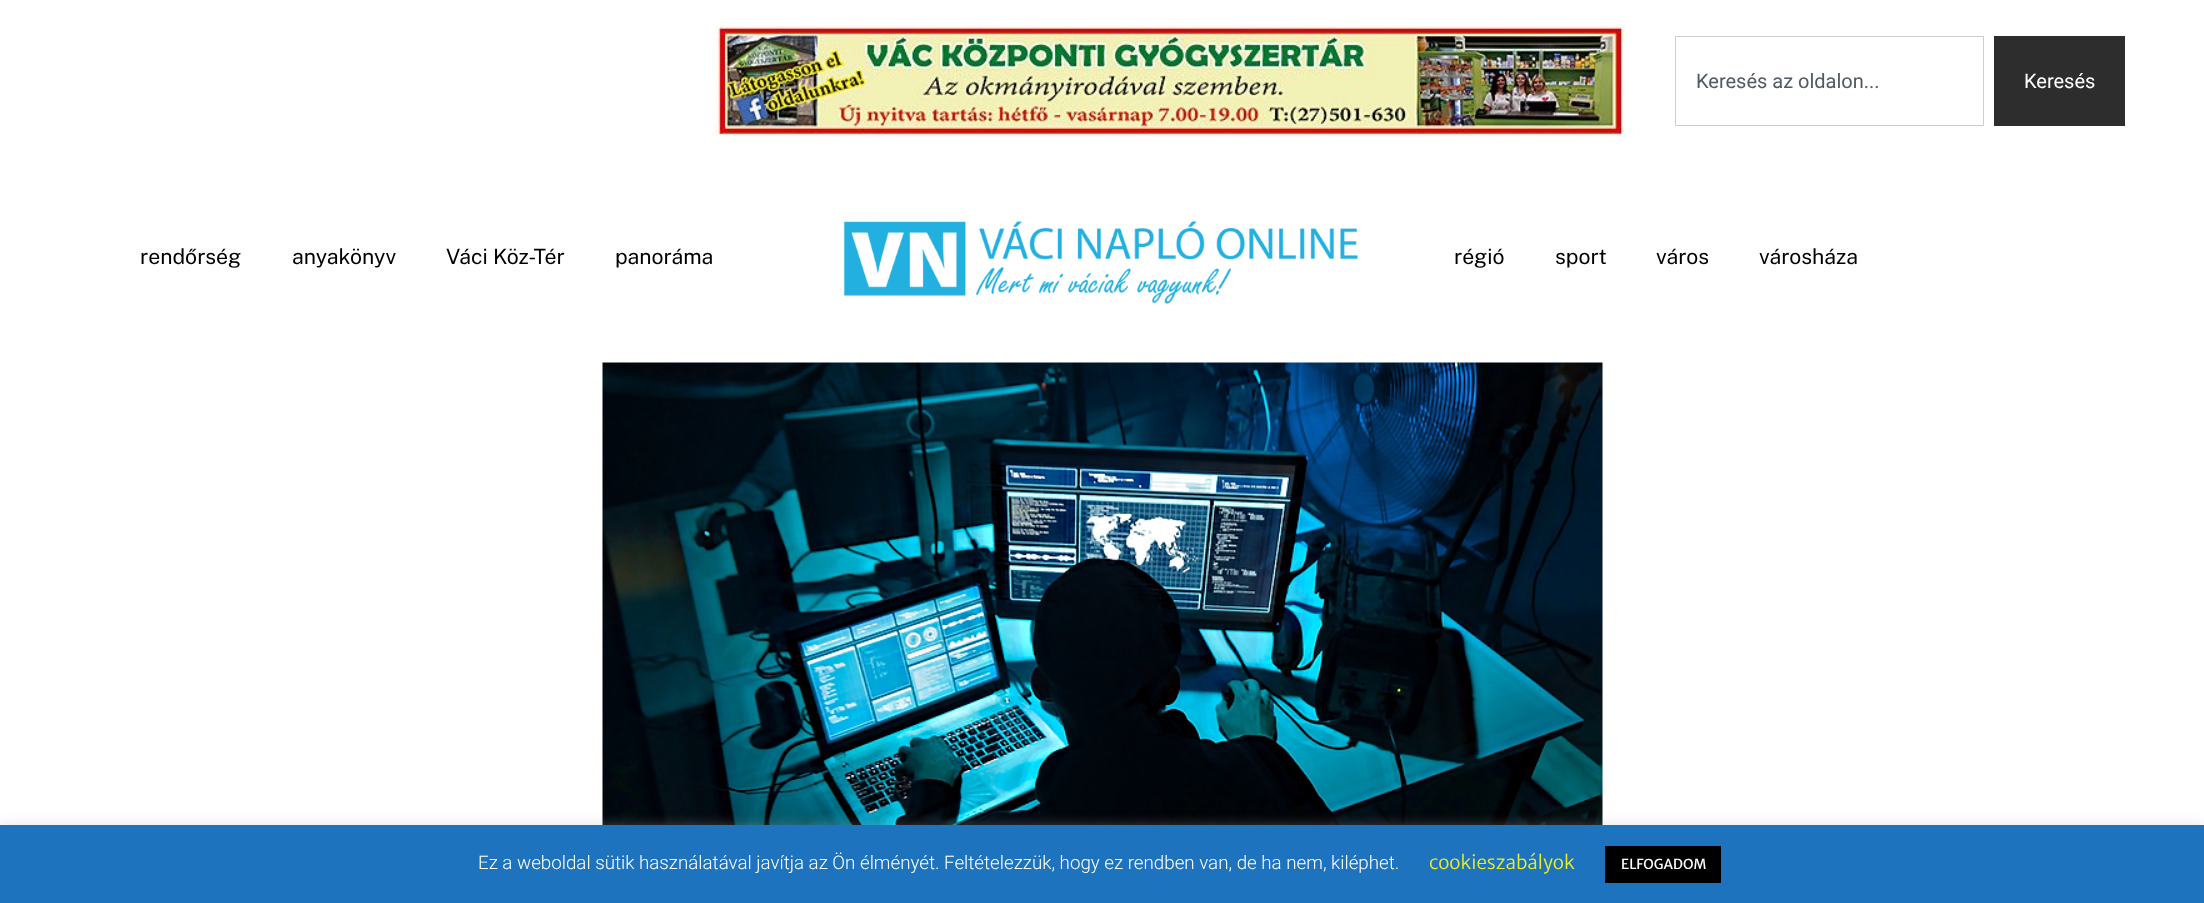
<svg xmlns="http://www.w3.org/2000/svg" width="2204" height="903">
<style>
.a{font:20px Roboto;fill:#515962}
.b{font:20px Roboto;fill:#fff}
.c{font:21.25px Public Sans;fill:#000}
.d{font:300 18.75px Roboto;fill:#fff}
.e{font:300 18.75px Merriweather Sans;fill:#ee2}
.f{font:13.75px Merriweather Sans;fill:#fff}
</style>
<rect width="100%" height="100%" fill="#fff"/>
<image href="1.png" x="715" y="25" width="910" height="113"/>
<path fill="none" stroke="#cdcdcd" d="M1675.5 36.5h308v89H1675.5z"/>
<path fill="#2d2d2d" d="M1994 36h131v90H1994z"/>
<image href="2.png" x="844" y="221" width="514" height="83"/>
<image href="3.png" x="602" y="362" width="1001" height="463"/>
<path fill="#acabab4d" filter="blur(6px)" d="M0 824h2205v79H0z"/>
<path fill="#1e73be" d="M0 825h2204v78H0z"/>
<path fill="#000" d="M1605 846h116v37H1605z"/>
<text class="a" x="1696" y="88">Keresés az oldalon...</text>
<text class="b" x="2024" y="88">Keresés</text>
<text class="c" x="140" y="264">rendőrség</text>
<text class="c" x="292" y="264">anyakönyv</text>
<text class="c" x="446" y="264">Váci Köz-Tér</text>
<text class="c" x="615" y="264">panoráma</text>
<text class="c" x="1454" y="264">régió</text>
<text class="c" x="1555" y="264">sport</text>
<text class="c" x="1656" y="264">város</text>
<text class="c" x="1759" y="264">városháza</text>
<text class="d" x="478" y="869">Ez a weboldal sütik használatával javítja az Ön élményét. Feltételezzük, hogy ez rendben van, de ha nem, kiléphet.</text>
<text class="e" x="1429" y="869">cookieszabályok</text>
<text class="f" x="1621" y="869">ELFOGADOM</text>
</svg>
